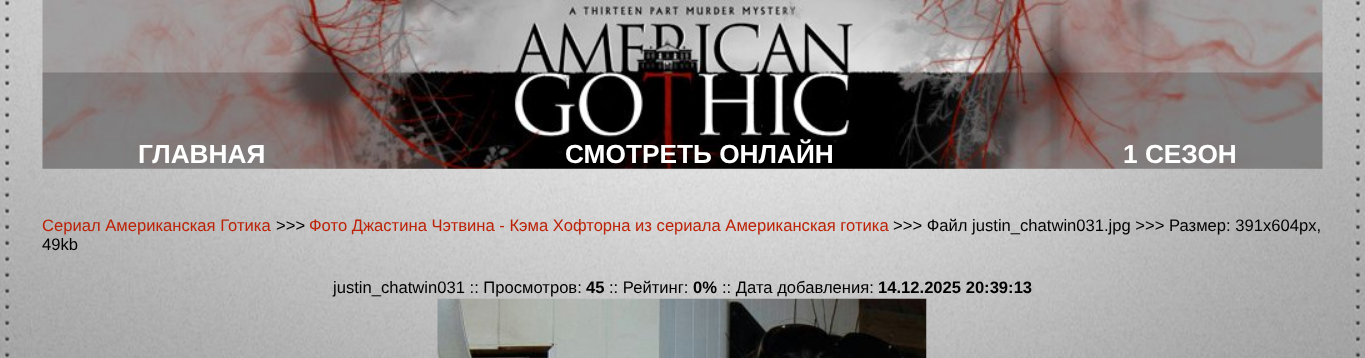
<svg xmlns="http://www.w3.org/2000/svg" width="1365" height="358">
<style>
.a{font:bold 26.25px Liberation Sans;fill:#fff}
.b{font:16.6px Liberation Sans;fill:#bc2206}
.c{font:16.6px Liberation Sans;fill:#000}
.d{font:bold 16.6px Liberation Sans;fill:#000}
</style>
<rect width="100%" height="100%" fill="#fff"/>
<image href="1.png" x="0" y="0" width="1365" height="358"/>
<image href="2.png" x="42" y="0" width="1281" height="169"/>
<image href="3.png" x="437" y="298" width="490" height="60"/>
<text class="a" x="138" y="163">ГЛАВНАЯ</text>
<text class="a" x="565" y="163">СМОТРЕТЬ ОНЛАЙН</text>
<text class="a" x="1123" y="163">1 СЕЗОН</text>
<text class="b" x="42" y="231">Сериал Американская Готика</text>
<text class="c" x="276" y="231">&gt;&gt;&gt;</text>
<text class="b" x="309" y="231">Фото Джастина Чэтвина - Кэма Хофторна из сериала Американская готика</text>
<text class="c" x="893" y="231">&gt;&gt;&gt; Файл justin_chatwin031.jpg &gt;&gt;&gt; Размер: 391x604px,</text>
<text class="c" x="42" y="250">49kb</text>
<text class="c" x="333" y="293">justin_chatwin031 :: Просмотров:</text>
<text class="d" x="586" y="293">45</text>
<text class="c" x="609" y="293">:: Рейтинг:</text>
<text class="d" x="693" y="293">0%</text>
<text class="c" x="722" y="293">:: Дата добавления:</text>
<text class="d" x="878" y="293">14.12.2025 20:39:13</text>
</svg>
